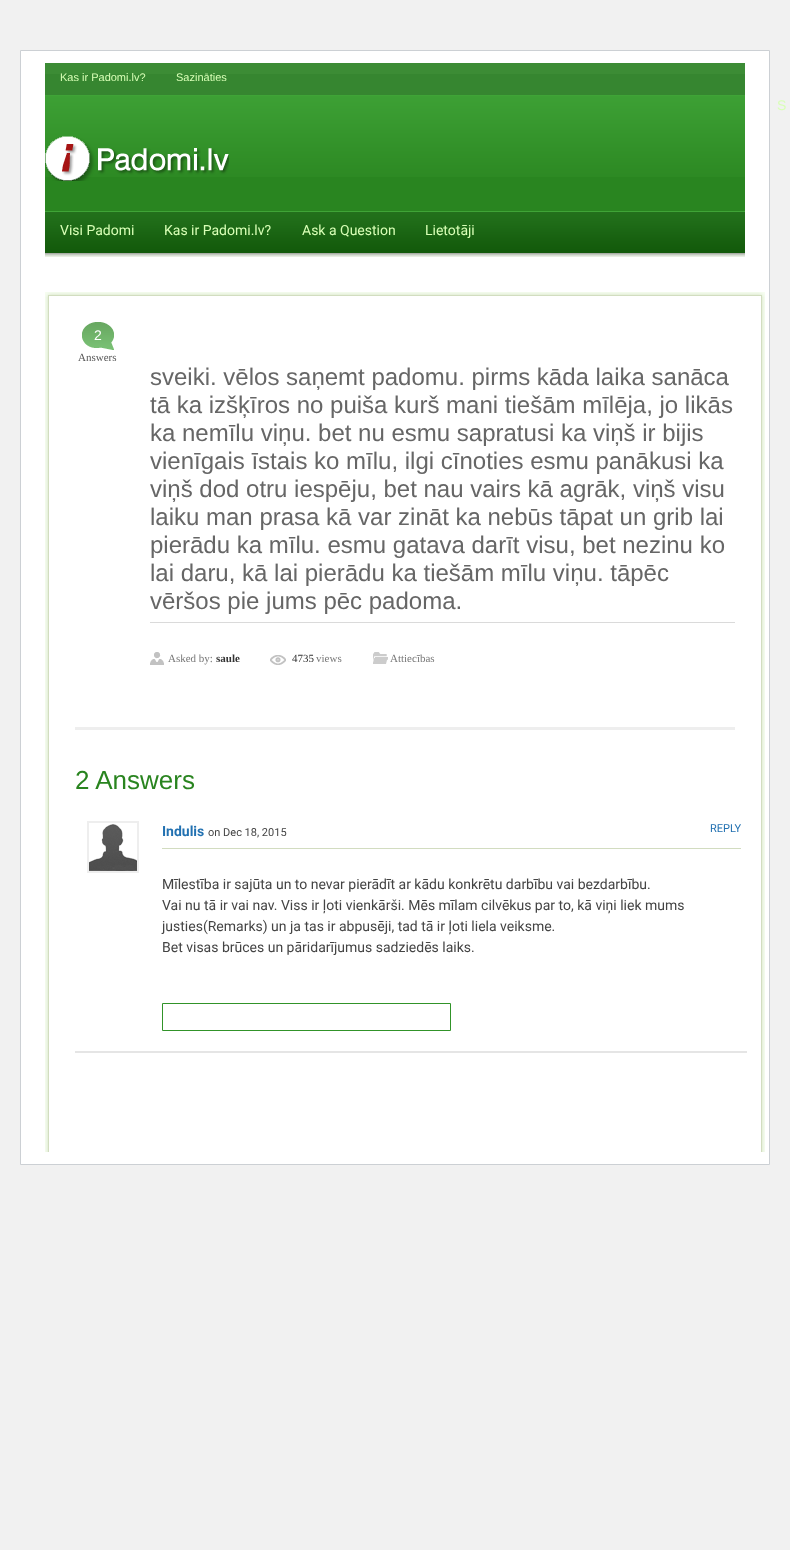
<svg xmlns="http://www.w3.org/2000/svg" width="790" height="1550">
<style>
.a{font:11px Liberation Sans;fill:#d8ffb6}
.b{font:14px Liberation Sans;fill:#d8ffb6}
.c{font:14px Roboto;fill:#d8ffb6}
.d{font:14px Liberation Sans;fill:#fff}
.e{font:11px Liberation Serif;fill:#555}
.f{font:24px Liberation Sans;fill:#666}
.g{font:11px Liberation Serif;fill:#777}
.h{font:bold 11px Liberation Serif;fill:#333}
.i{font:11px Liberation Serif;fill:#333}
.j{font:26px Liberation Sans;fill:#29841f}
.k{font:bold 14px Roboto;fill:#2271b1}
.l{font:11px Roboto;fill:#444}
.m{font:11px Roboto;fill:#2271b1}
.n{font:14px Roboto;fill:#444}
</style>
<rect width="100%" height="100%" fill="#f1f1f1"/>
<path fill="#fff" stroke="#ccd0d4" d="M20.5 50.5h749v1114H20.5z"/>
<path fill="#368630" d="M45 74h700v21H45z"/>
<path fill="#3c8c35" d="M45 63h700v11H45z"/>
<path fill="#298520" d="M45 177h700v34H45z"/>
<image href="1.png" x="45" y="96" width="700" height="81"/>
<path fill="#3fa437" d="M45 95h700v1H45z"/>
<path fill="#3fa437" d="M45 211h700v1H45z"/>
<image href="2.png" x="45" y="136" width="184" height="45"/>
<image href="3.png" x="45" y="212" width="700" height="45"/>
<image href="4.png" x="45" y="297" width="720" height="855"/>
<image href="5.png" x="45" y="292" width="720" height="5"/>
<path fill="#eee" d="M75 727h660v3H75z"/>
<image href="6.png" x="82" y="322" width="32" height="28"/>
<path fill="#dadada" d="M150 622h585v1H150z"/>
<image href="7.png" x="150" y="652" width="14" height="13"/>
<image href="8.png" x="270" y="655" width="16" height="10"/>
<image href="9.png" x="373" y="652" width="15" height="12"/>
<path fill="#e5e5e5" d="M75 1051h672v2H75z"/>
<path fill="none" stroke="#eee" stroke-width="2" d="M88 822h50v50H88z"/>
<image href="10.png" x="89" y="824" width="48" height="47"/>
<path fill="#d2dcc0" d="M162 848h579v1H162z"/>
<path fill="none" stroke="#319329" d="M162.5 1003.5h288v27H162.5z"/>
<text class="a" x="60" y="81">Kas ir Padomi.lv?</text>
<text class="a" x="176" y="81">Sazināties</text>
<text class="b" x="777" y="110">S</text>
<text class="c" x="60" y="235">Visi Padomi</text>
<text class="c" x="164" y="235">Kas ir Padomi.lv?</text>
<text class="c" x="302" y="235">Ask a Question</text>
<text class="c" x="425" y="235">Lietotāji</text>
<text class="d" x="94" y="340">2</text>
<text class="e" x="78" y="361">Answers</text>
<text class="f" x="150" y="385">sveiki. vēlos saņemt padomu. pirms kāda laika sanāca</text>
<text class="f" x="150" y="413">tā ka izšķīros no puiša kurš mani tiešām mīlēja, jo likās</text>
<text class="f" x="150" y="441">ka nemīlu viņu. bet nu esmu sapratusi ka viņš ir bijis</text>
<text class="f" x="150" y="469">vienīgais īstais ko mīlu, ilgi cīnoties esmu panākusi ka</text>
<text class="f" x="150" y="497">viņš dod otru iespēju, bet nau vairs kā agrāk, viņš visu</text>
<text class="f" x="150" y="525">laiku man prasa kā var zināt ka nebūs tāpat un grib lai</text>
<text class="f" x="150" y="553">pierādu ka mīlu. esmu gatava darīt visu, bet nezinu ko</text>
<text class="f" x="150" y="581">lai daru, kā lai pierādu ka tiešām mīlu viņu. tāpēc</text>
<text class="f" x="150" y="609">vēršos pie jums pēc padoma.</text>
<text class="g" x="168" y="662">Asked by:</text>
<text class="h" x="216" y="662">saule</text>
<text class="i" x="292" y="662">4735</text>
<text class="g" x="316" y="662">views</text>
<text class="g" x="390" y="662">Attiecības</text>
<text class="j" x="75" y="789">2 Answers</text>
<text class="k" x="162" y="836">Indulis</text>
<text class="l" x="208" y="836">on Dec 18, 2015</text>
<text class="m" x="710" y="832">REPLY</text>
<text class="n" x="162" y="889">Mīlestība ir sajūta un to nevar pierādīt ar kādu konkrētu darbību vai bezdarbību.</text>
<text class="n" x="162" y="910">Vai nu tā ir vai nav. Viss ir ļoti vienkārši. Mēs mīlam cilvēkus par to, kā viņi liek mums</text>
<text class="n" x="162" y="931">justies(Remarks) un ja tas ir abpusēji, tad tā ir ļoti liela veiksme.</text>
<text class="n" x="162" y="952">Bet visas brūces un pāridarījumus sadziedēs laiks.</text>
</svg>
